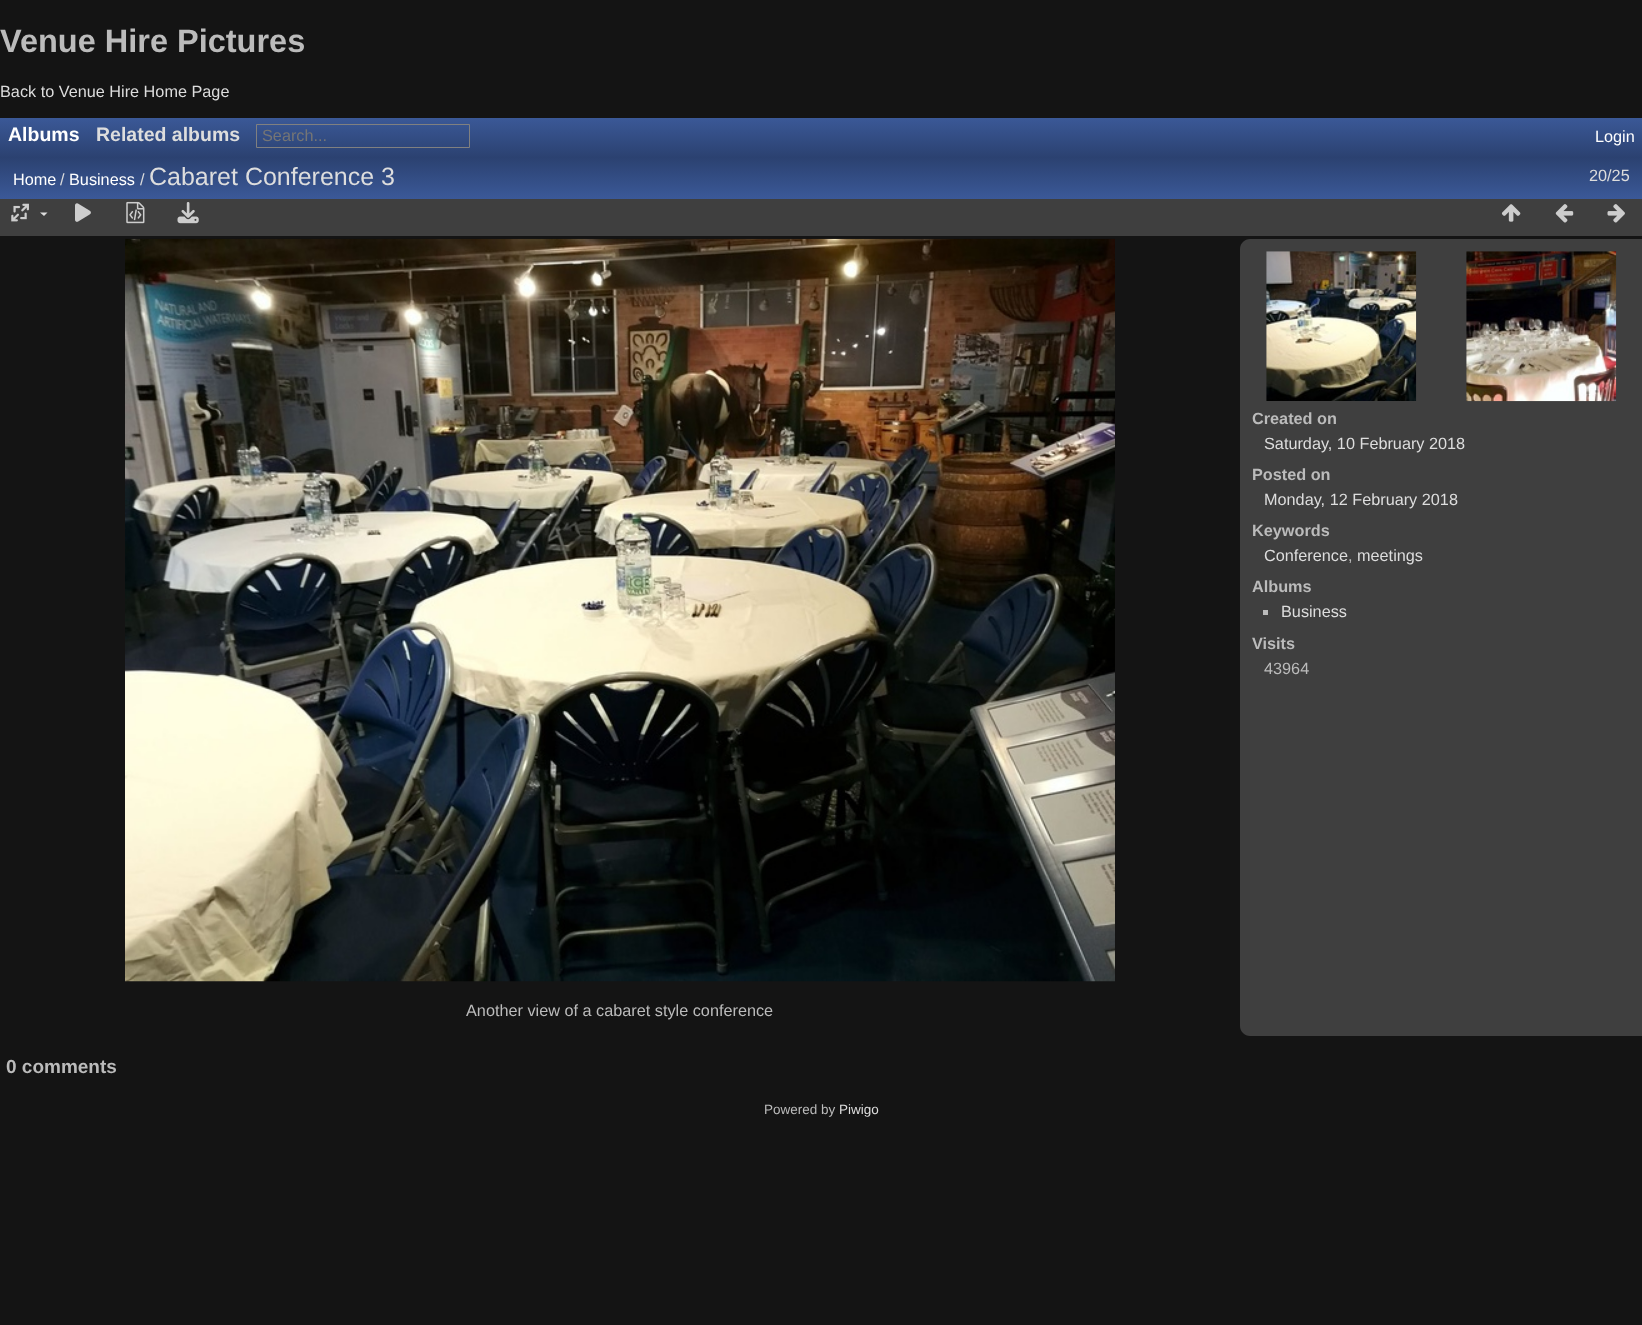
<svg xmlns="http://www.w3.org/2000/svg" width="1642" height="1325">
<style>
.a{font:bold 32.5px Liberation Sans;fill:#bbb}
.b{font:16.25px Liberation Sans;fill:#ddd}
.c{font:bold 19.5px Liberation Sans;fill:#fff}
.d{font:bold 19.5px Liberation Sans;fill:#ddd}
.e{font:16.25px Liberation Sans;fill:#757575}
.f{font:16.25px Liberation Sans;fill:#fff}
.g{font:25px Liberation Sans;fill:#ddd}
.h{font:bold 16.25px Liberation Sans;fill:#bbb}
.i{font:16.25px Liberation Sans;fill:#bbb}
.j{font:bold 19px Liberation Sans;fill:#bbb}
.k{font:13.5px Liberation Sans;fill:#bbb}
.l{font:13.5px Liberation Sans;fill:#ddd}
</style>
<defs>
<linearGradient id="g1" gradientUnits="userSpaceOnUse" x1="821" y1="117" x2="821" y2="158"><stop offset="0" stop-color="#3b5998"/><stop offset="1" stop-color="#2b4170"/></linearGradient>
<linearGradient id="g2" gradientUnits="userSpaceOnUse" x1="821" y1="157" x2="821" y2="199"><stop offset="0" stop-color="#2b4170"/><stop offset="1" stop-color="#3b5998"/></linearGradient>
</defs>
<rect width="100%" height="100%" fill="#141414"/>
<path fill="url(#g1)" d="M0 118h1642v40H0z"/>
<path fill="none" stroke="#808080" d="M256.5 124.5h213v23H256.5z"/>
<path fill="url(#g2)" d="M0 158h1642v41H0z"/>
<path fill="#3f3f3f" d="M0 199h1642v37H0z"/>
<image href="1.png" x="11" y="203" width="18" height="19"/>
<path fill="#ddd" d="M40 212.5h7.5l-3.5 3.5z"/>
<image href="2.png" x="75" y="203" width="16" height="19"/>
<image href="3.png" x="126" y="201" width="19" height="23"/>
<image href="4.png" x="177" y="202" width="22" height="22"/>
<image href="5.png" x="1501" y="204" width="20" height="18"/>
<image href="6.png" x="1555" y="204" width="19" height="19"/>
<image href="7.png" x="1607" y="204" width="18" height="19"/>
<path fill="#3f3f3f" d="M1250 239h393v797h-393c-5.5 0-10-4.5-10-10v-777c0-5.5 4.5-10 10-10z"/>
<image href="8.png" x="1266" y="251" width="151" height="150"/>
<image href="9.png" x="1466" y="251" width="151" height="151"/>
<path fill="#bbb" d="M1263 610h5v5H1263z"/>
<image href="10.png" x="125" y="238" width="990" height="744"/>
<text class="a" x="0" y="52">Venue Hire Pictures</text>
<text class="b" x="0" y="97">Back to Venue Hire Home Page</text>
<text class="c" x="8" y="141">Albums</text>
<text class="d" x="96" y="141">Related albums</text>
<text class="e" x="262" y="141">Search...</text>
<text class="f" x="1595" y="142">Login</text>
<text class="f" x="13" y="185">Home</text>
<text class="b" x="60" y="185">/</text>
<text class="f" x="69" y="185">Business</text>
<text class="b" x="140" y="185">/</text>
<text class="g" x="149" y="185">Cabaret Conference 3</text>
<text class="b" x="1589" y="181">20/25</text>
<text class="h" x="1252" y="424">Created on</text>
<text class="b" x="1264" y="449">Saturday, 10 February 2018</text>
<text class="h" x="1252" y="480">Posted on</text>
<text class="b" x="1264" y="505">Monday, 12 February 2018</text>
<text class="h" x="1252" y="536">Keywords</text>
<text class="b" x="1264" y="561">Conference</text>
<text class="i" x="1348" y="561">,</text>
<text class="b" x="1357" y="561">meetings</text>
<text class="h" x="1252" y="592">Albums</text>
<text class="b" x="1281" y="617">Business</text>
<text class="h" x="1252" y="649">Visits</text>
<text class="i" x="1264" y="674">43964</text>
<text class="i" x="466" y="1016">Another view of a cabaret style conference</text>
<text class="j" x="6" y="1073">0 comments</text>
<text class="k" x="764" y="1114">Powered by</text>
<text class="l" x="839" y="1114">Piwigo</text>
</svg>
